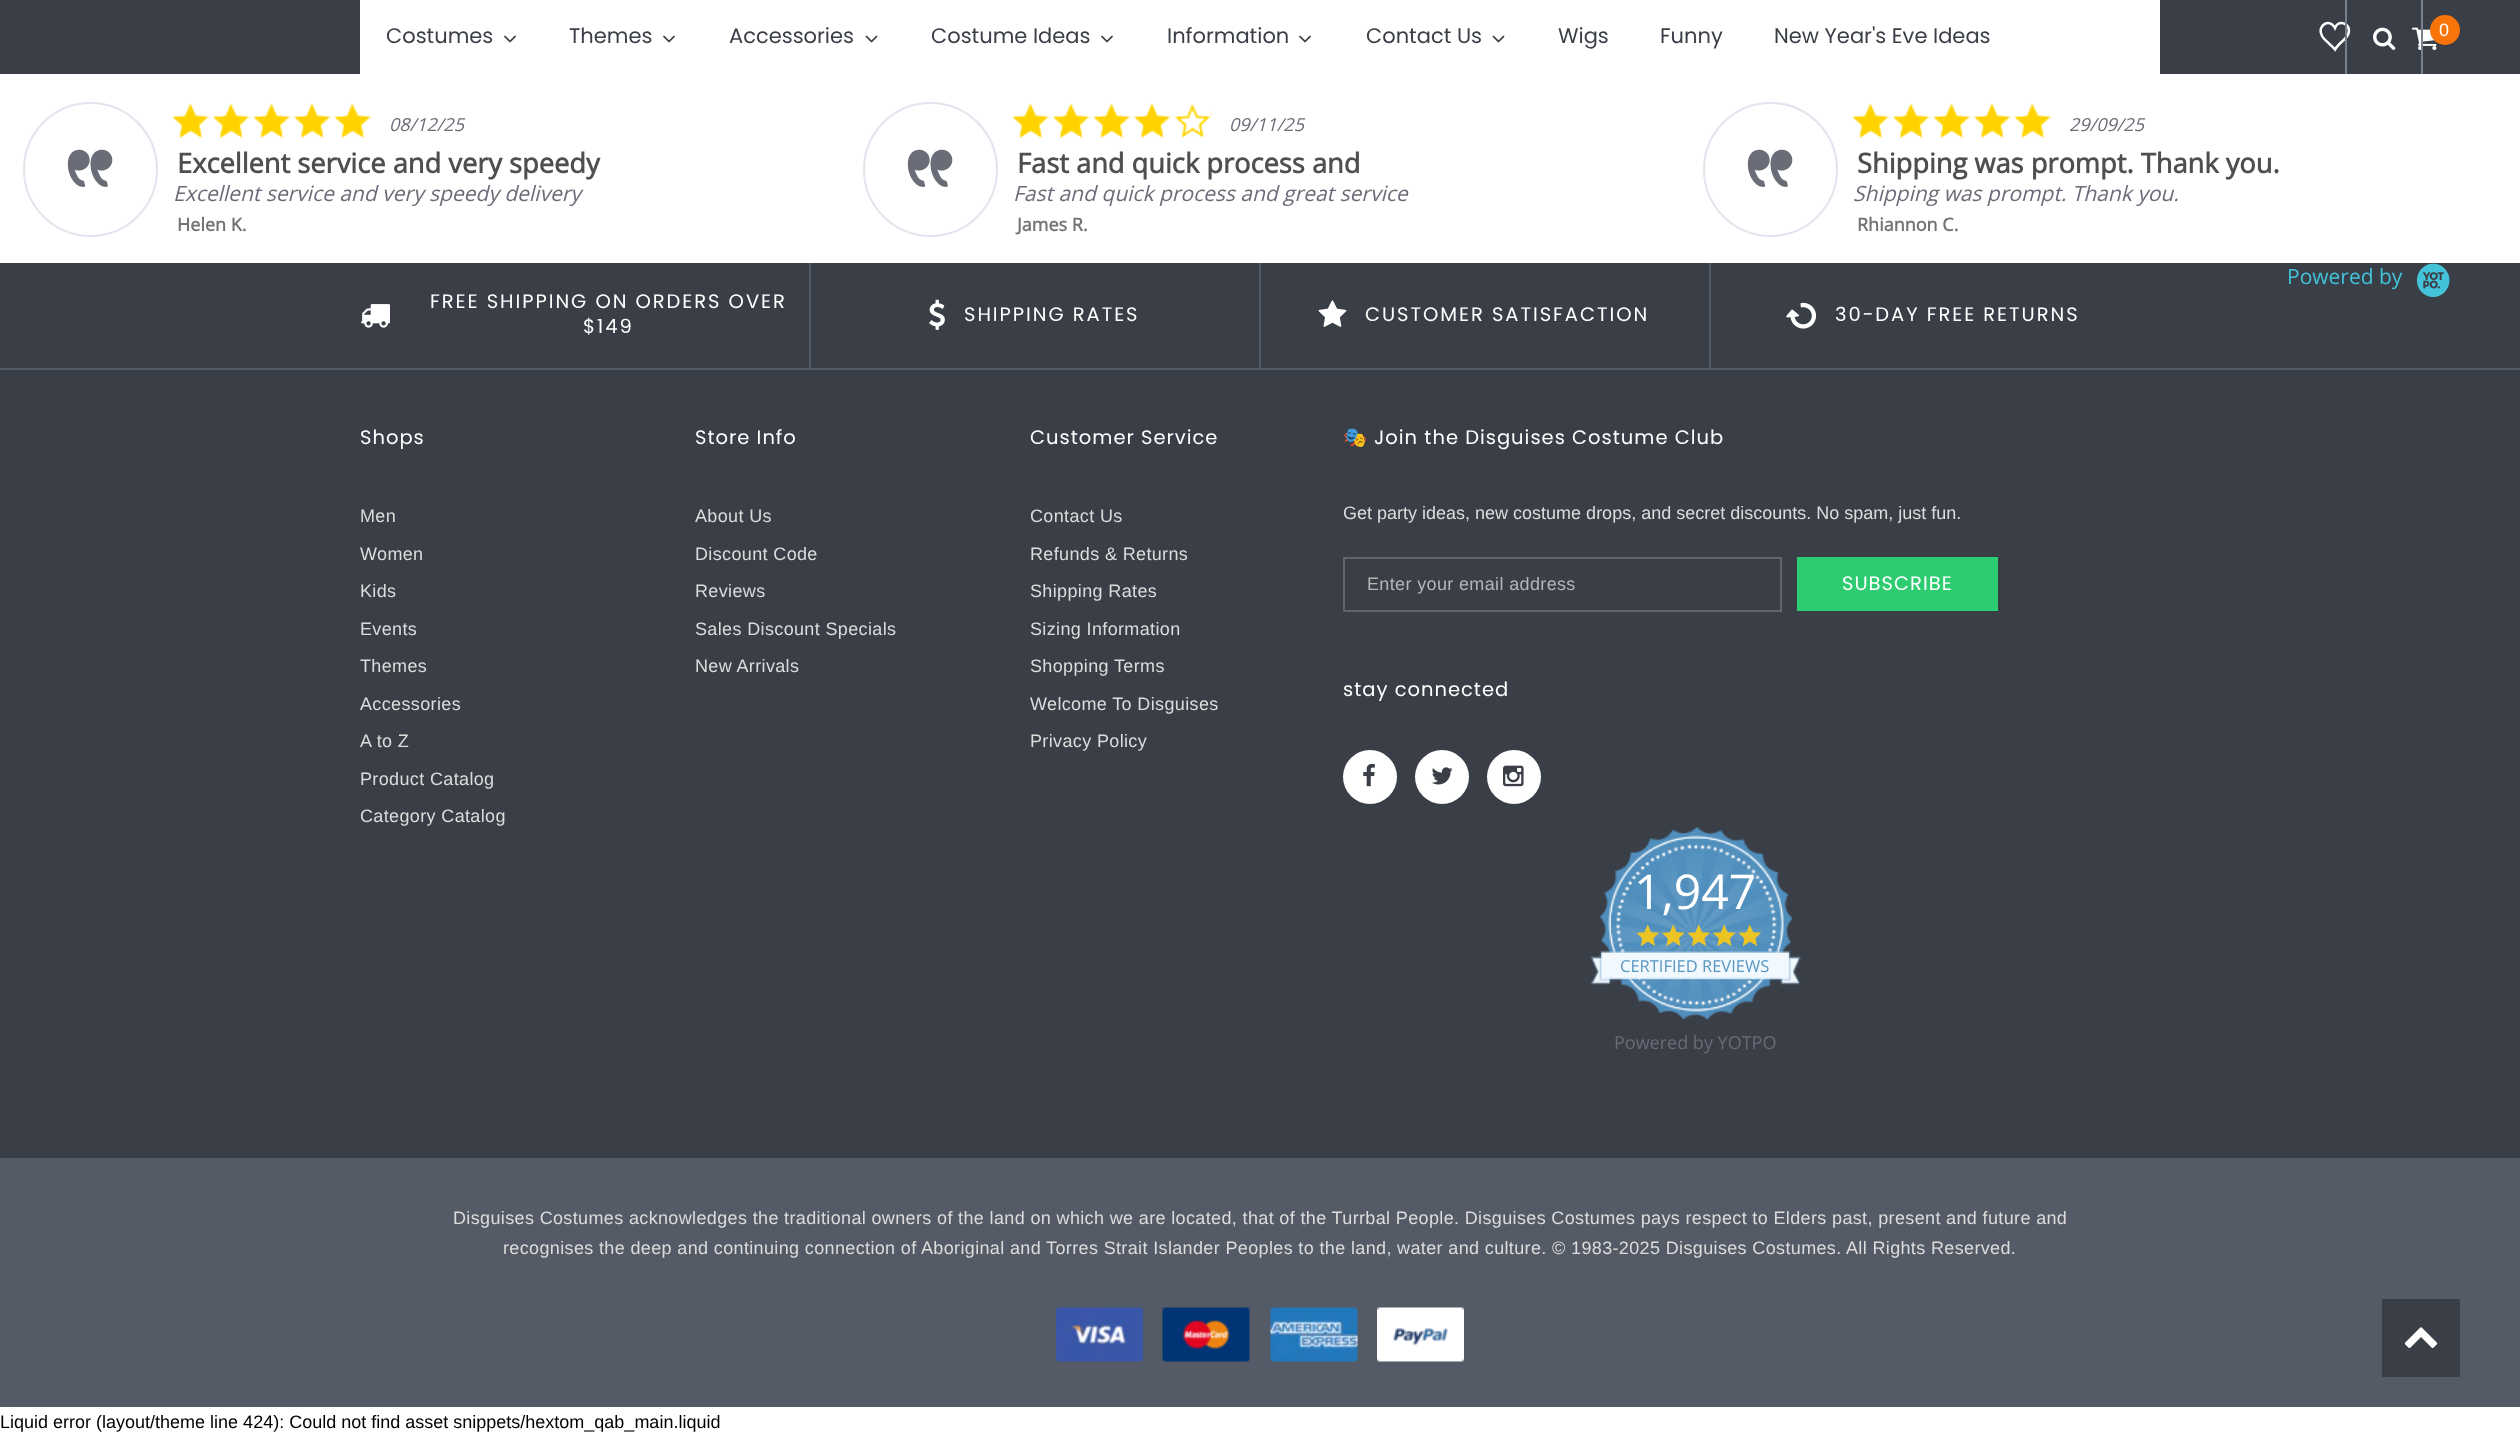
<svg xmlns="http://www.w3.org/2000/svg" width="2520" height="1436">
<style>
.a{font:21px Poppins;fill:#3a3e46}
.b{font:18px Arimo;fill:#fff}
.c{font:italic 18px Open Sans;fill:#6a6c77}
.d{font:bold 27.25px Open Sans;fill:#4f4f4f}
.e{font:italic 21px Open Sans;fill:#6a6c77}
.f{font:bold 18px Open Sans;fill:#737373}
.g{font:21px Open Sans;fill:#43c3d9}
.h{font:19.5px Poppins;letter-spacing:1.95px;fill:#fff}
.i{font:19.5px Poppins;letter-spacing:1px;fill:#fff}
.j{font:18px Arimo;letter-spacing:0.36px;fill:#dcdcdc}
.k{font:19.5px Noto Color Emoji;letter-spacing:1px;fill:#fff}
.l{font:18px Arimo;fill:#dcdcdc}
.m{font:18px Arimo;letter-spacing:0.36px;fill:#b5b5b5}
.n{font:48px Open Sans;fill:#fff}
.o{font:16.5px Open Sans;fill:#5997c1}
.p{font:18px Open Sans;fill:#6a6c77}
.q{font:18px Arimo;fill:#000}
</style>
<rect width="100%" height="100%" fill="#fff"/>
<path fill="#3a3e46" d="M0 0h2520v74H0z"/>
<path fill="#fff" d="M360 0h1800v74H360z"/>
<image href="1.png" x="504" y="35" width="12" height="8"/>
<image href="1.png" x="663" y="35" width="12" height="8"/>
<image href="2.png" x="865" y="35" width="13" height="8"/>
<image href="1.png" x="1101" y="35" width="12" height="8"/>
<image href="1.png" x="1299" y="35" width="12" height="8"/>
<image href="2.png" x="1492" y="35" width="13" height="8"/>
<image href="4.png" x="2412" y="27" width="25" height="23"/>
<path fill="#787f8d" d="M2421 0h2v74H2421z"/>
<path fill="none" stroke="#fff" stroke-width="2.5" d="M2341.5 23c-3 0-5.5 2.5-6.5 5c-5-10.5-19-2.5-13 8c2.5 4.5 9 8.5 13 13.5c5-8.5 14-11 14-19c0-4-3.5-7.5-7.5-7.5z"/>
<path fill="#787f8d" d="M2345 0h2v74H2345z"/>
<image href="3.png" x="2373" y="27" width="23" height="23"/>
<circle fill="#f6740a" cx="2445" cy="30" r="15"/>
<circle fill="none" stroke="#e1e5ee" stroke-width="2" cx="90.5" cy="169.5" r="66.5"/>
<image href="5.png" x="67" y="149" width="46" height="38"/>
<image href="6.png" x="172" y="103" width="38" height="35"/>
<image href="7.png" x="213" y="103" width="38" height="35"/>
<image href="6.png" x="253" y="103" width="38" height="35"/>
<image href="8.png" x="294" y="103" width="38" height="35"/>
<image href="6.png" x="334" y="103" width="38" height="35"/>
<circle fill="none" stroke="#e1e5ee" stroke-width="2" cx="930.5" cy="169.5" r="66.5"/>
<image href="5.png" x="907" y="149" width="46" height="38"/>
<image href="6.png" x="1012" y="103" width="38" height="35"/>
<image href="8.png" x="1053" y="103" width="38" height="35"/>
<image href="6.png" x="1093" y="103" width="38" height="35"/>
<image href="8.png" x="1134" y="103" width="38" height="35"/>
<image href="9.png" x="1174" y="104" width="38" height="34"/>
<circle fill="none" stroke="#e1e5ee" stroke-width="2" cx="1770.5" cy="169.5" r="66.5"/>
<image href="5.png" x="1747" y="149" width="46" height="38"/>
<image href="6.png" x="1852" y="103" width="38" height="35"/>
<image href="8.png" x="1893" y="103" width="38" height="35"/>
<image href="10.png" x="1933" y="103" width="38" height="35"/>
<image href="8.png" x="1974" y="103" width="38" height="35"/>
<image href="6.png" x="2014" y="103" width="38" height="35"/>
<path fill="#3a3e46" d="M0 263h2520v895H0z"/>
<image href="11.png" x="2417" y="263" width="33" height="34"/>
<path fill="#555b66" d="M0 368h2520v2H0z"/>
<path fill="#555b66" d="M809 263h2v105H809z"/>
<image href="12.png" x="361" y="304" width="29" height="24"/>
<path fill="#555b66" d="M1259 263h2v105H1259z"/>
<image href="13.png" x="929" y="299" width="16" height="31"/>
<path fill="#555b66" d="M1709 263h2v105H1709z"/>
<image href="14.png" x="1318" y="300" width="29" height="27"/>
<image href="15.png" x="1786" y="302" width="31" height="27"/>
<path fill="none" stroke="#61656b" stroke-width="2" d="M1344 558h437v53H1344z"/>
<path fill="#2ecc71" d="M1797 557h201v54H1797z"/>
<circle fill="#fff" cx="1370" cy="777" r="27"/>
<image href="16.png" x="1363" y="763" width="12" height="24"/>
<circle fill="#fff" cx="1442" cy="777" r="27"/>
<image href="17.png" x="1431" y="767" width="22" height="18"/>
<circle fill="#fff" cx="1514" cy="777" r="27"/>
<image href="18.png" x="1503" y="765" width="21" height="22"/>
<image href="19.png" x="1590" y="827" width="212" height="193"/>
<image href="20.png" x="1636" y="924" width="24" height="23"/>
<image href="21.png" x="1662" y="924" width="23" height="23"/>
<image href="22.png" x="1687" y="924" width="24" height="23"/>
<image href="23.png" x="1713" y="924" width="23" height="23"/>
<image href="24.png" x="1738" y="924" width="24" height="23"/>
<path fill="#555b66" d="M0 1158h2520v249H0z"/>
<image href="25.png" x="1056" y="1307" width="87" height="55"/>
<image href="26.png" x="1162" y="1307" width="88" height="55"/>
<image href="27.png" x="1270" y="1307" width="88" height="55"/>
<image href="28.png" x="1377" y="1307" width="87" height="55"/>
<path fill="#3a3e46" d="M2382 1299h78v78H2382z"/>
<image href="29.png" x="2404" y="1327" width="34" height="22"/>
<text class="a" x="386" y="43">Costumes</text>
<text class="a" x="569" y="43">Themes</text>
<text class="a" x="729" y="43">Accessories</text>
<text class="a" x="931" y="43">Costume Ideas</text>
<text class="a" x="1167" y="43">Information</text>
<text class="a" x="1366" y="43">Contact Us</text>
<text class="a" x="1558" y="43">Wigs</text>
<text class="a" x="1660" y="43">Funny</text>
<text class="a" x="1774" y="43">New Year's Eve Ideas</text>
<text class="b" x="2439" y="36">0</text>
<text class="c" x="389" y="131">08/12/25</text>
<text class="d" x="177" y="173">Excellent service and very speedy</text>
<text class="e" x="173" y="201">Excellent service and very speedy delivery</text>
<text class="f" x="177" y="231">Helen K.</text>
<text class="c" x="1229" y="131">09/11/25</text>
<text class="d" x="1017" y="173">Fast and quick process and</text>
<text class="e" x="1013" y="201">Fast and quick process and great service</text>
<text class="f" x="1017" y="231">James R.</text>
<text class="c" x="2069" y="131">29/09/25</text>
<text class="d" x="1857" y="173">Shipping was prompt. Thank you.</text>
<text class="e" x="1853" y="201">Shipping was prompt. Thank you.</text>
<text class="f" x="1857" y="231">Rhiannon C.</text>
<text class="g" x="2287" y="284">Powered by</text>
<text class="h" x="430" y="308">FREE SHIPPING ON ORDERS OVER</text>
<text class="h" x="583" y="333">$149</text>
<text class="h" x="964" y="321">SHIPPING RATES</text>
<text class="h" x="1365" y="321">CUSTOMER SATISFACTION</text>
<text class="h" x="1835" y="321">30-DAY FREE RETURNS</text>
<text class="i" x="360" y="444">Shops</text>
<text class="j" x="360" y="522">Men</text>
<text class="j" x="360" y="560">Women</text>
<text class="j" x="360" y="597">Kids</text>
<text class="j" x="360" y="635">Events</text>
<text class="j" x="360" y="672">Themes</text>
<text class="j" x="360" y="710">Accessories</text>
<text class="j" x="360" y="747">A to Z</text>
<text class="j" x="360" y="785">Product Catalog</text>
<text class="j" x="360" y="822">Category Catalog</text>
<text class="i" x="695" y="444">Store Info</text>
<text class="j" x="695" y="522">About Us</text>
<text class="j" x="695" y="560">Discount Code</text>
<text class="j" x="695" y="597">Reviews</text>
<text class="j" x="695" y="635">Sales Discount Specials</text>
<text class="j" x="695" y="672">New Arrivals</text>
<text class="i" x="1030" y="444">Customer Service</text>
<text class="j" x="1030" y="522">Contact Us</text>
<text class="j" x="1030" y="560">Refunds &amp; Returns</text>
<text class="j" x="1030" y="597">Shipping Rates</text>
<text class="j" x="1030" y="635">Sizing Information</text>
<text class="j" x="1030" y="672">Shopping Terms</text>
<text class="j" x="1030" y="710">Welcome To Disguises</text>
<text class="j" x="1030" y="747">Privacy Policy</text>
<text class="k" x="1343" y="444">🎭</text>
<text class="i" x="1374" y="444">Join the Disguises Costume Club</text>
<text class="l" x="1343" y="519">Get party ideas, new costume drops, and secret discounts. No spam, just fun.</text>
<text class="m" x="1367" y="590">Enter your email address</text>
<text class="i" x="1842" y="590">SUBSCRIBE</text>
<text class="i" x="1343" y="696">stay connected</text>
<text class="n" x="1634" y="909">1,947</text>
<text class="o" x="1620" y="972">CERTIFIED REVIEWS</text>
<text class="p" x="1614" y="1049">Powered by YOTPO</text>
<text class="j" x="453" y="1224">Disguises Costumes acknowledges the traditional owners of the land on which we are located, that of the Turrbal People. Disguises Costumes pays respect to Elders past, present and future and</text>
<text class="j" x="503" y="1254">recognises the deep and continuing connection of Aboriginal and Torres Strait Islander Peoples to the land, water and culture. © 1983-2025 Disguises Costumes. All Rights Reserved.</text>
<text class="q" x="0" y="1428">Liquid error (layout/theme line 424): Could not find asset snippets/hextom_qab_main.liquid</text>
</svg>
